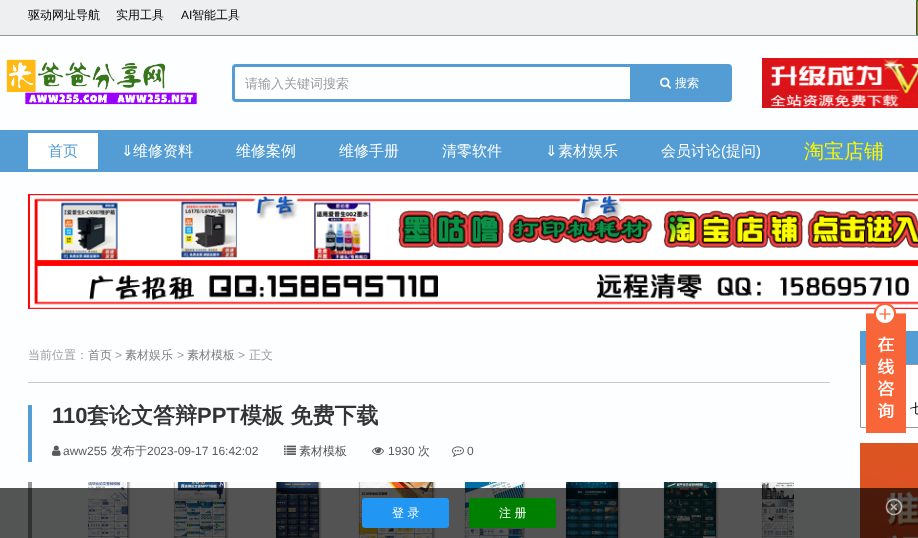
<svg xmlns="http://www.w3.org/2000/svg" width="918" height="538">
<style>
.a{font:500 12px WenQuanYi Zen Hei;fill:#000}
.b{font:12px Liberation Sans;fill:#000}
.c{font:500 13px WenQuanYi Zen Hei;fill:#9b9c9d}
.d{font:500 12px WenQuanYi Zen Hei;fill:#fff}
.e{font:500 15px WenQuanYi Zen Hei;fill:#539cd4}
.f{font:15px DejaVu Sans;fill:#fff}
.g{font:500 15px WenQuanYi Zen Hei;fill:#fff}
.h{font:15px Liberation Sans;fill:#fff}
.i{font:500 20px WenQuanYi Zen Hei;fill:#fff600}
.j{font:500 12px WenQuanYi Zen Hei;fill:#9b9c9d}
.k{font:500 12px WenQuanYi Zen Hei;fill:#7e7f80}
.l{font:12px Liberation Sans;fill:#9b9c9d}
.m{font:bold 22px Liberation Sans;fill:#333}
.n{font:bold 22px WenQuanYi Zen Hei;fill:#333}
.o{font:12px Liberation Sans;fill:#595959}
.p{font:500 12px WenQuanYi Zen Hei;fill:#595959}
.q{font:500 13px WenQuanYi Zen Hei;fill:#000}
</style>
<rect width="100%" height="100%" fill="#fcfeff"/>
<path fill="#edeff0" d="M0 0h916v35H0z"/>
<path fill="#969696" d="M0 35h918v1H0z"/>
<path fill="#cd5c5c" stroke="#008000" d="M916.5 0.5h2v34H916.5z"/>
<image href="1.png" x="6" y="59" width="191" height="46"/>
<rect fill="none" stroke="#539cd4" stroke-width="3" x="233.5" y="65.5" width="497" height="35" rx="2.5"/>
<path fill="#539cd4" d="M630 67h99v32H630z"/>
<image href="2.png" x="660" y="77" width="12" height="12"/>
<image href="3.png" x="762" y="58" width="156" height="50"/>
<path fill="#539cd4" d="M0 130h918v42H0z"/>
<path fill="#fff" d="M28 133h70v36H28z"/>
<image href="5.png" x="28" y="194" width="890" height="115"/>
<path fill="#539cd4" d="M860 331h58v33H860z"/>
<path fill="#fff" stroke="#969696" d="M860.5 364.5h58v63H860.5z"/>
<image href="4.png" x="866" y="302" width="40" height="131"/>
<path fill="#c9cacb" d="M28 382h802v1H28z"/>
<path fill="#539cd4" d="M28 405h4v57H28z"/>
<image href="6.png" x="52" y="445" width="9" height="11"/>
<image href="7.png" x="284" y="445" width="12" height="10"/>
<image href="8.png" x="372" y="447" width="12" height="8"/>
<image href="9.png" x="452" y="446" width="12" height="11"/>
<path fill="#969696" d="M28 482h4v56H28z"/>
<image href="10.png" x="88" y="482" width="706" height="56"/>
<image href="11.png" x="860" y="443" width="58" height="95"/>
<path fill="#000000ab" d="M0 488h918v50H0z"/>
<rect fill="#2196f3" x="362" y="498" width="87" height="30" rx="3"/>
<rect fill="#008000" x="469" y="498" width="87" height="30" rx="3"/>
<image href="12.png" x="885" y="498" width="18" height="18"/>
<text class="a" x="28" y="19">驱动网址导航</text>
<text class="a" x="116" y="19">实用工具</text>
<text class="b" x="181" y="19">AI</text>
<text class="a" x="192" y="19">智能工具</text>
<text class="c" x="245" y="88">请输入关键词搜索</text>
<text class="d" x="675" y="87">搜索</text>
<text class="e" x="48" y="156">首页</text>
<text class="f" x="121" y="156">⇓</text>
<text class="g" x="133" y="156">维修资料</text>
<text class="g" x="236" y="156">维修案例</text>
<text class="g" x="339" y="156">维修手册</text>
<text class="g" x="442" y="156">清零软件</text>
<text class="f" x="545" y="156">⇓</text>
<text class="g" x="558" y="156">素材娱乐</text>
<text class="g" x="661" y="156">会员讨论</text>
<text class="h" x="721" y="156">(</text>
<text class="g" x="726" y="156">提问</text>
<text class="h" x="756" y="156">)</text>
<text class="i" x="804" y="158">淘宝店铺</text>
<text class="j" x="28" y="359">当前位置：</text>
<text class="k" x="88" y="359">首页</text>
<text class="l" x="115" y="359">&gt;</text>
<text class="k" x="125" y="359">素材娱乐</text>
<text class="l" x="177" y="359">&gt;</text>
<text class="k" x="187" y="359">素材模板</text>
<text class="l" x="238" y="359">&gt;</text>
<text class="j" x="249" y="359">正文</text>
<text class="m" x="52" y="423">110</text>
<text class="n" x="87" y="423">套论文答辩</text>
<text class="m" x="197" y="423">PPT</text>
<text class="n" x="240" y="423">模板 免费下载</text>
<text class="o" x="63" y="455">aww255</text>
<text class="p" x="111" y="455">发布于</text>
<text class="o" x="147" y="455">2023-09-17 16:42:02</text>
<text class="p" x="299" y="455">素材模板</text>
<text class="o" x="388" y="455">1930</text>
<text class="p" x="418" y="455">次</text>
<text class="o" x="467" y="455">0</text>
<text class="q" x="910" y="413">七</text>
<text class="d" x="392" y="517">登 录</text>
<text class="d" x="499" y="517">注 册</text>
</svg>
